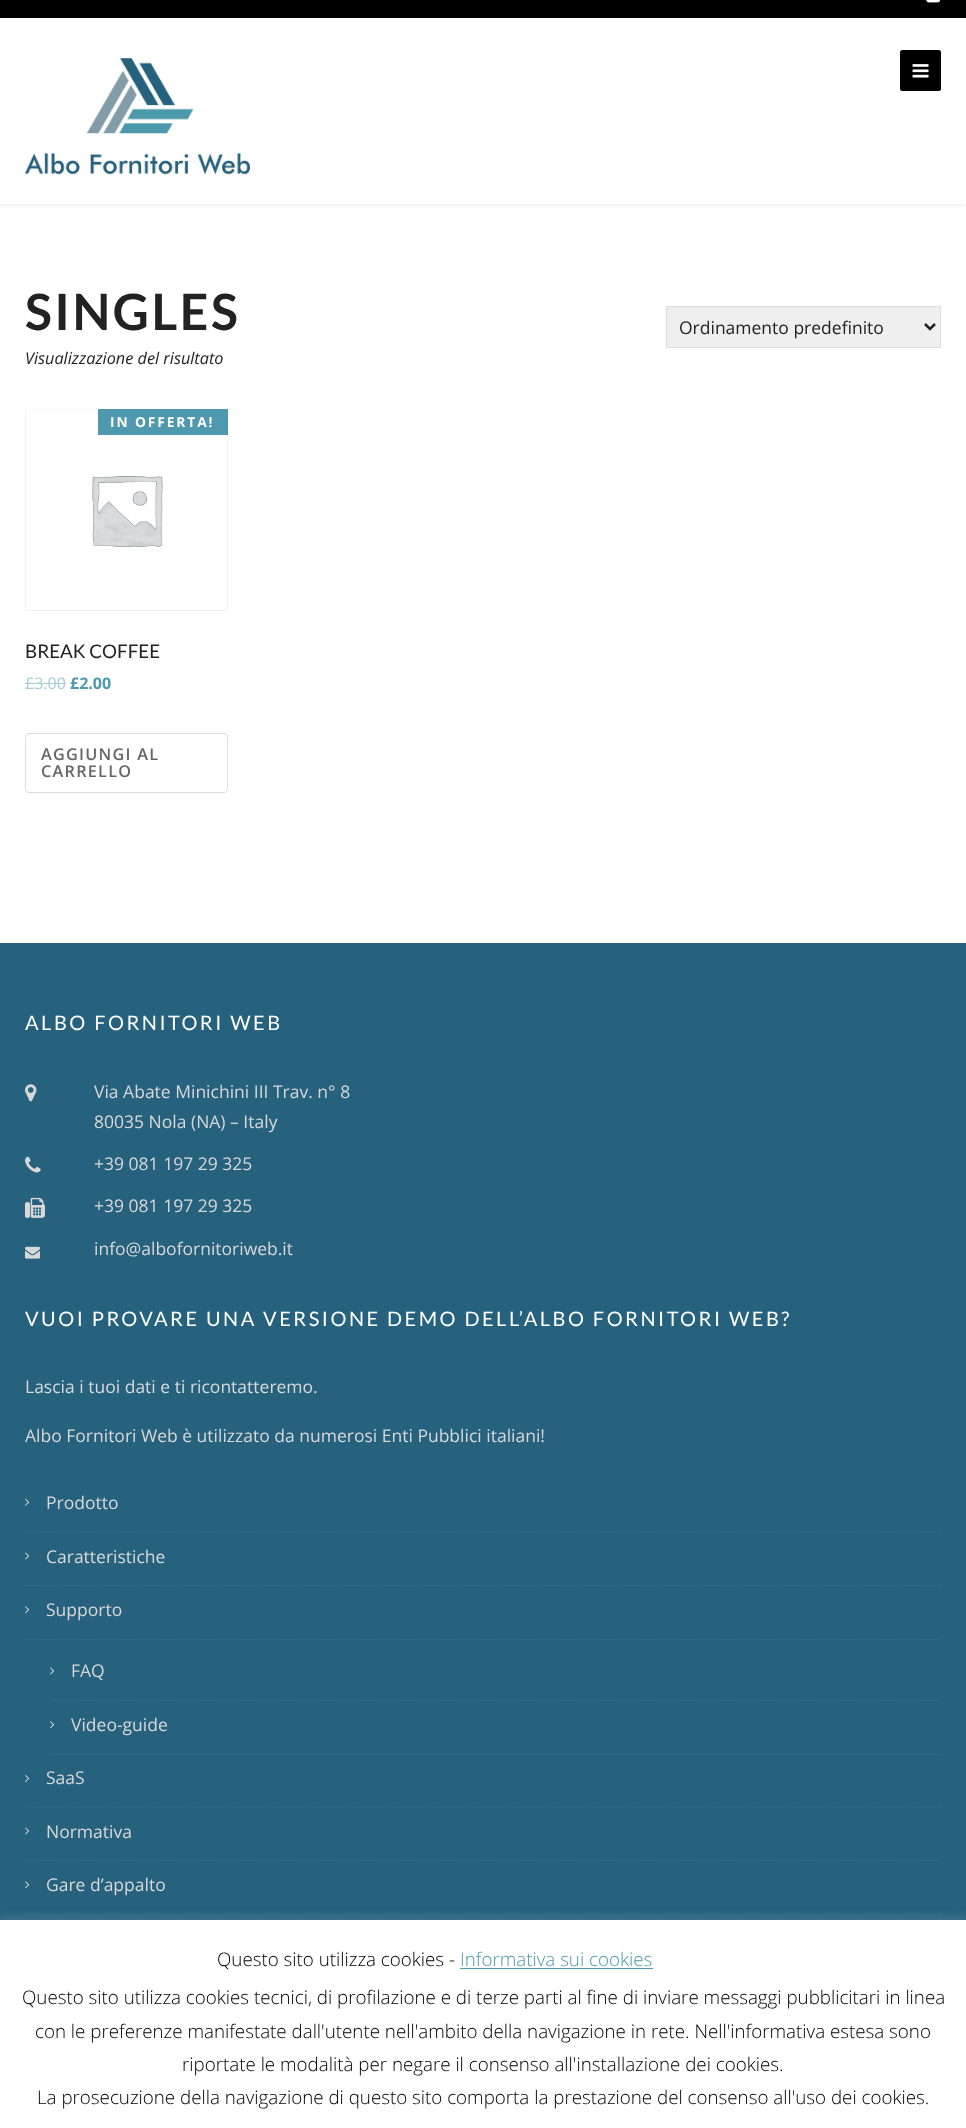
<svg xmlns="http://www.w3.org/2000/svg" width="966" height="2128">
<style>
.a{font:bold 50px Lato;letter-spacing:2.5px;fill:#222}
.b{font:17.5px Open Sans;fill:#222}
.c{font:italic 16.25px Open Sans;fill:#222}
.d{font:bold 13.75px Open Sans;letter-spacing:1.9px;fill:#fff}
.e{font:18.75px Lato;fill:#222}
.f{font:16px Open Sans;fill:#a7ccd6}
.g{font:bold 16px Open Sans;fill:#4e99ad}
.h{font:600 16.25px Open Sans;letter-spacing:1.25px;fill:#666}
.i{font:20px Lato;letter-spacing:2.5px;fill:#fff}
.j{font:17.5px Open Sans;fill:#d8d8d8}
.k{font:300 18.75px Open Sans;fill:#000}
.l{font:300 18.75px Open Sans;fill:#4e99ad}
</style>
<rect width="100%" height="100%" fill="#fff"/>
<path fill="#000" d="M0 0h966v18H0z"/>
<image href="1.png" x="926" y="0" width="15" height="3"/>
<path fill="#0000000d" filter="blur(1px)" d="M0 20h966v186H0z"/>
<path fill="#fff" d="M0 19h966v185H0z"/>
<image href="2.png" x="25" y="56" width="225" height="119"/>
<rect fill="#000" x="900" y="50" width="41" height="41" rx="2.5"/>
<image href="3.png" x="912" y="64" width="17" height="14"/>
<path fill="#efefef" stroke="#ddd" d="M666.5 306.5h274v41H666.5z"/>
<path fill="none" stroke="#222" stroke-width="2.5" d="M925 324l5 5l5-5"/>
<path fill="none" stroke="#f2f2f2" d="M25.5 409.5h202v201H25.5z"/>
<image href="4.png" x="26" y="409" width="200" height="138"/>
<path fill="#4e99ad" d="M98 409h130v26H98z"/>
<path fill="#a7ccd6" d="M25 683h41v1H25z"/>
<rect fill="none" stroke="#ddd" x="25.5" y="733.5" width="202" height="59" rx="3.5"/>
<path fill="#26627e" d="M0 943h966v977H0z"/>
<image href="5.png" x="25" y="1084" width="12" height="18"/>
<image href="6.png" x="25" y="1156" width="16" height="17"/>
<image href="7.png" x="25" y="1197" width="20" height="21"/>
<image href="8.png" x="25" y="1246" width="15" height="13"/>
<path fill="none" stroke="#3c728b" stroke-width="1.2" stroke-dasharray="1.25 1.25" d="M25 1532h916"/>
<image href="9.png" x="25" y="1498" width="5" height="8"/>
<path fill="none" stroke="#3c728b" stroke-width="1.2" stroke-dasharray="1.25 1.25" d="M25 1585.5h916"/>
<image href="10.png" x="25" y="1552" width="5" height="8"/>
<path fill="none" stroke="#3c728b" stroke-width="1.2" stroke-dasharray="1.25 1.25" d="M25 1639.5h916"/>
<image href="11.png" x="25" y="1606" width="5" height="8"/>
<path fill="none" stroke="#3c728b" stroke-width="1.2" stroke-dasharray="1.25 1.25" d="M50 1700.5h891"/>
<image href="10.png" x="50" y="1667" width="5" height="8"/>
<path fill="none" stroke="#3c728b" stroke-width="1.2" stroke-dasharray="1.25 1.25" d="M50 1754.5h891"/>
<image href="11.png" x="50" y="1721" width="5" height="8"/>
<path fill="none" stroke="#3c728b" stroke-width="1.2" stroke-dasharray="1.25 1.25" d="M25 1807h916"/>
<image href="12.png" x="25" y="1775" width="5" height="7"/>
<path fill="none" stroke="#3c728b" stroke-width="1.2" stroke-dasharray="1.25 1.25" d="M25 1860.5h916"/>
<image href="10.png" x="25" y="1827" width="5" height="8"/>
<path fill="none" stroke="#3c728b" stroke-width="1.2" stroke-dasharray="1.25 1.25" d="M25 1914.5h916"/>
<image href="11.png" x="25" y="1881" width="5" height="8"/>
<path fill="#acabab4d" filter="blur(6px)" d="M0 1919h966v209H0z"/>
<path fill="#fff" d="M0 1920h966v208H0z"/>
<path fill="#4e99ad" d="M460 1968h193v1H460z"/>
<text class="a" x="25" y="330">SINGLES</text>
<text class="b" x="679" y="334">Ordinamento predefinito</text>
<text class="c" x="25" y="364">Visualizzazione del risultato</text>
<text class="d" x="110" y="427">IN OFFERTA!</text>
<text class="e" x="25" y="658">BREAK COFFEE</text>
<text class="f" x="25" y="689">£3.00</text>
<text class="g" x="70" y="689">£2.00</text>
<text class="h" x="41" y="760">AGGIUNGI AL</text>
<text class="h" x="41" y="777">CARRELLO</text>
<text class="i" x="25" y="1030">ALBO FORNITORI WEB</text>
<text class="j" x="94" y="1098">Via Abate Minichini III Trav. n° 8</text>
<text class="j" x="94" y="1128">80035 Nola (NA) – Italy</text>
<text class="j" x="94" y="1170">+39 081 197 29 325</text>
<text class="j" x="94" y="1212">+39 081 197 29 325</text>
<text class="j" x="94" y="1255">info@albofornitoriweb.it</text>
<text class="i" x="25" y="1326">VUOI PROVARE UNA VERSIONE DEMO DELL’ALBO FORNITORI WEB?</text>
<text class="j" x="25" y="1393">Lascia i tuoi dati e ti ricontatteremo.</text>
<text class="j" x="25" y="1442">Albo Fornitori Web è utilizzato da numerosi Enti Pubblici italiani!</text>
<text class="j" x="46" y="1509">Prodotto</text>
<text class="j" x="46" y="1563">Caratteristiche</text>
<text class="j" x="46" y="1616">Supporto</text>
<text class="j" x="71" y="1677">FAQ</text>
<text class="j" x="71" y="1731">Video-guide</text>
<text class="j" x="46" y="1784">SaaS</text>
<text class="j" x="46" y="1838">Normativa</text>
<text class="j" x="46" y="1891">Gare d’appalto</text>
<text class="k" x="217" y="1966">Questo sito utilizza cookies -</text>
<text class="l" x="460" y="1966">Informativa sui cookies</text>
<text class="k" x="22" y="2004">Questo sito utilizza cookies tecnici, di profilazione e di terze parti al fine di inviare messaggi pubblicitari in linea</text>
<text class="k" x="35" y="2038">con le preferenze manifestate dall'utente nell'ambito della navigazione in rete. Nell'informativa estesa sono</text>
<text class="k" x="182" y="2071">riportate le modalità per negare il consenso all'installazione dei cookies.</text>
<text class="k" x="37" y="2104">La prosecuzione della navigazione di questo sito comporta la prestazione del consenso all'uso dei cookies.</text>
</svg>
